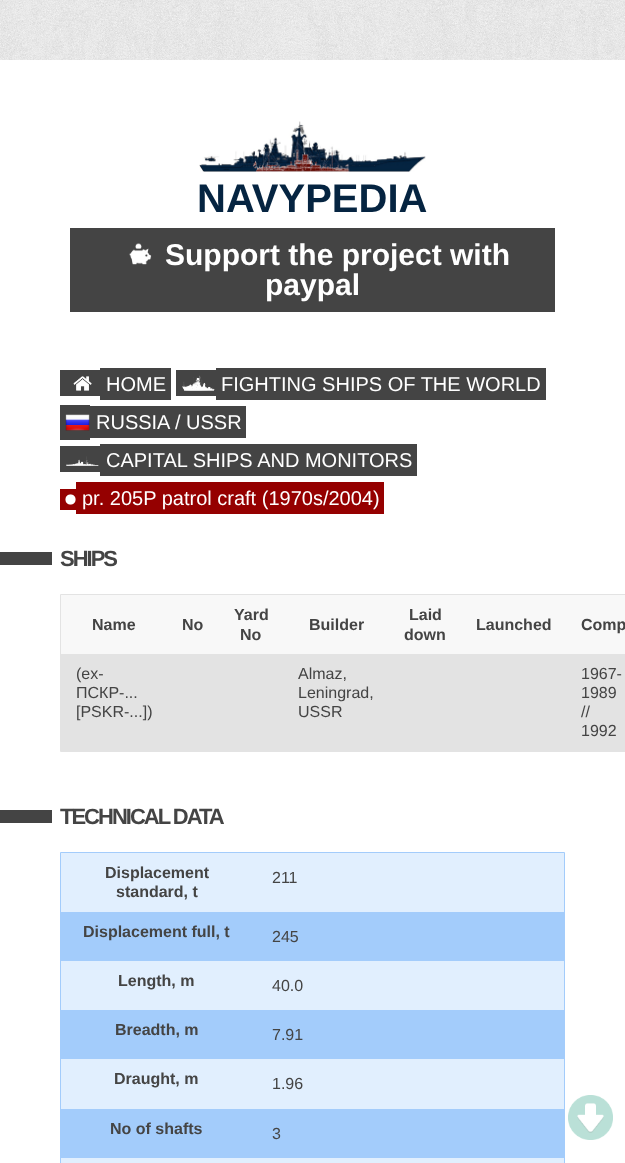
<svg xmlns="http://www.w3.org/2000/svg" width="625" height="1163">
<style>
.a{font:bold 40px Liberation Sans;fill:#052441}
.b{font:bold 30px Liberation Sans;fill:#fff}
.c{font:20px Liberation Sans;fill:#fff}
.d{font:bold 22px Liberation Sans;letter-spacing:-2px;fill:#444}
.e{font:bold 16px Liberation Sans;fill:#444}
.f{font:16px Liberation Sans;fill:#444}
</style>
<rect width="100%" height="100%" fill="#fff"/>
<image href="1.png" x="0" y="0" width="625" height="60"/>
<image href="2.png" x="199" y="121" width="227" height="51"/>
<path fill="#444" d="M70 228h485v84H70z"/>
<image href="3.png" x="129" y="243" width="23" height="22"/>
<path fill="#444" d="M60 370h40v26H60z"/>
<image href="4.png" x="73" y="376" width="19" height="15"/>
<path fill="#444" d="M100 368h71v32H100z"/>
<path fill="#444" d="M176 370h40v26H176z"/>
<image href="5.png" x="182" y="375" width="33" height="16"/>
<path fill="#444" d="M216 368h330v32H216z"/>
<path fill="#444" d="M60 405h30v35H60z"/>
<image href="6.png" x="65" y="414" width="25" height="17"/>
<path fill="#444" d="M90 406h156v32H90z"/>
<path fill="#444" d="M60 446h40v26H60z"/>
<image href="7.png" x="66" y="456" width="33" height="10"/>
<path fill="#444" d="M100 444h317v32H100z"/>
<path fill="#950000" d="M60 489h16v21H60z"/>
<image href="8.png" x="65" y="494" width="11" height="11"/>
<path fill="#950000" d="M76 482h308v32H76z"/>
<path fill="#444" d="M0 552h52v13H0z"/>
<path fill="none" stroke="#e3e3e3" d="M60.5 594.5h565v157H60.5z"/>
<path fill="#f8f8f8" d="M61 595h564v59H61z"/>
<path fill="#e3e3e3" d="M61 654h564v97H61z"/>
<path fill="#444" d="M0 810h52v13H0z"/>
<path fill="none" stroke="#a3ccfb" d="M60.5 852.5h504v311H60.5z"/>
<path fill="#e1effe" d="M61 853h503v59H61z"/>
<path fill="#a3ccfb" d="M61 912h503v49H61z"/>
<path fill="#e1effe" d="M61 961h503v49H61z"/>
<path fill="#a3ccfb" d="M61 1010h503v49H61z"/>
<path fill="#e1effe" d="M61 1059h503v50H61z"/>
<path fill="#a3ccfb" d="M61 1109h503v49H61z"/>
<path fill="#e1effe" d="M61 1158h503v5H61z"/>
<image href="9.png" x="568" y="1095" width="45" height="45"/>
<text class="a" x="197" y="212">NAVYPEDIA</text>
<text class="b" x="165" y="265">Support the project with</text>
<text class="b" x="265" y="295">paypal</text>
<text class="c" x="106" y="391">HOME</text>
<text class="c" x="221" y="391">FIGHTING SHIPS OF THE WORLD</text>
<text class="c" x="96" y="429">RUSSIA / USSR</text>
<text class="c" x="106" y="467">CAPITAL SHIPS AND MONITORS</text>
<text class="c" x="82" y="505">pr. 205P patrol craft (1970s/2004)</text>
<text class="d" x="60" y="566">SHIPS</text>
<text class="e" x="92" y="630">Name</text>
<text class="e" x="182" y="630">No</text>
<text class="e" x="234" y="620">Yard</text>
<text class="e" x="240" y="640">No</text>
<text class="e" x="309" y="630">Builder</text>
<text class="e" x="409" y="620">Laid</text>
<text class="e" x="404" y="640">down</text>
<text class="e" x="476" y="630">Launched</text>
<text class="e" x="581" y="630">Comp</text>
<text class="f" x="76" y="679">(ex-</text>
<text class="f" x="76" y="698">ПСКР-...</text>
<text class="f" x="76" y="717">[PSKR-...])</text>
<text class="f" x="298" y="679">Almaz,</text>
<text class="f" x="298" y="698">Leningrad,</text>
<text class="f" x="298" y="717">USSR</text>
<text class="f" x="581" y="679">1967-</text>
<text class="f" x="581" y="698">1989</text>
<text class="f" x="581" y="717">//</text>
<text class="f" x="581" y="736">1992</text>
<text class="d" x="60" y="824">TECHNICAL DATA</text>
<text class="e" x="105" y="878">Displacement</text>
<text class="e" x="116" y="897">standard, t</text>
<text class="f" x="272" y="883">211</text>
<text class="e" x="83" y="937">Displacement full, t</text>
<text class="f" x="272" y="942">245</text>
<text class="e" x="118" y="986">Length, m</text>
<text class="f" x="272" y="991">40.0</text>
<text class="e" x="115" y="1035">Breadth, m</text>
<text class="f" x="272" y="1040">7.91</text>
<text class="e" x="114" y="1084">Draught, m</text>
<text class="f" x="272" y="1089">1.96</text>
<text class="e" x="110" y="1134">No of shafts</text>
<text class="f" x="272" y="1139">3</text>
</svg>
